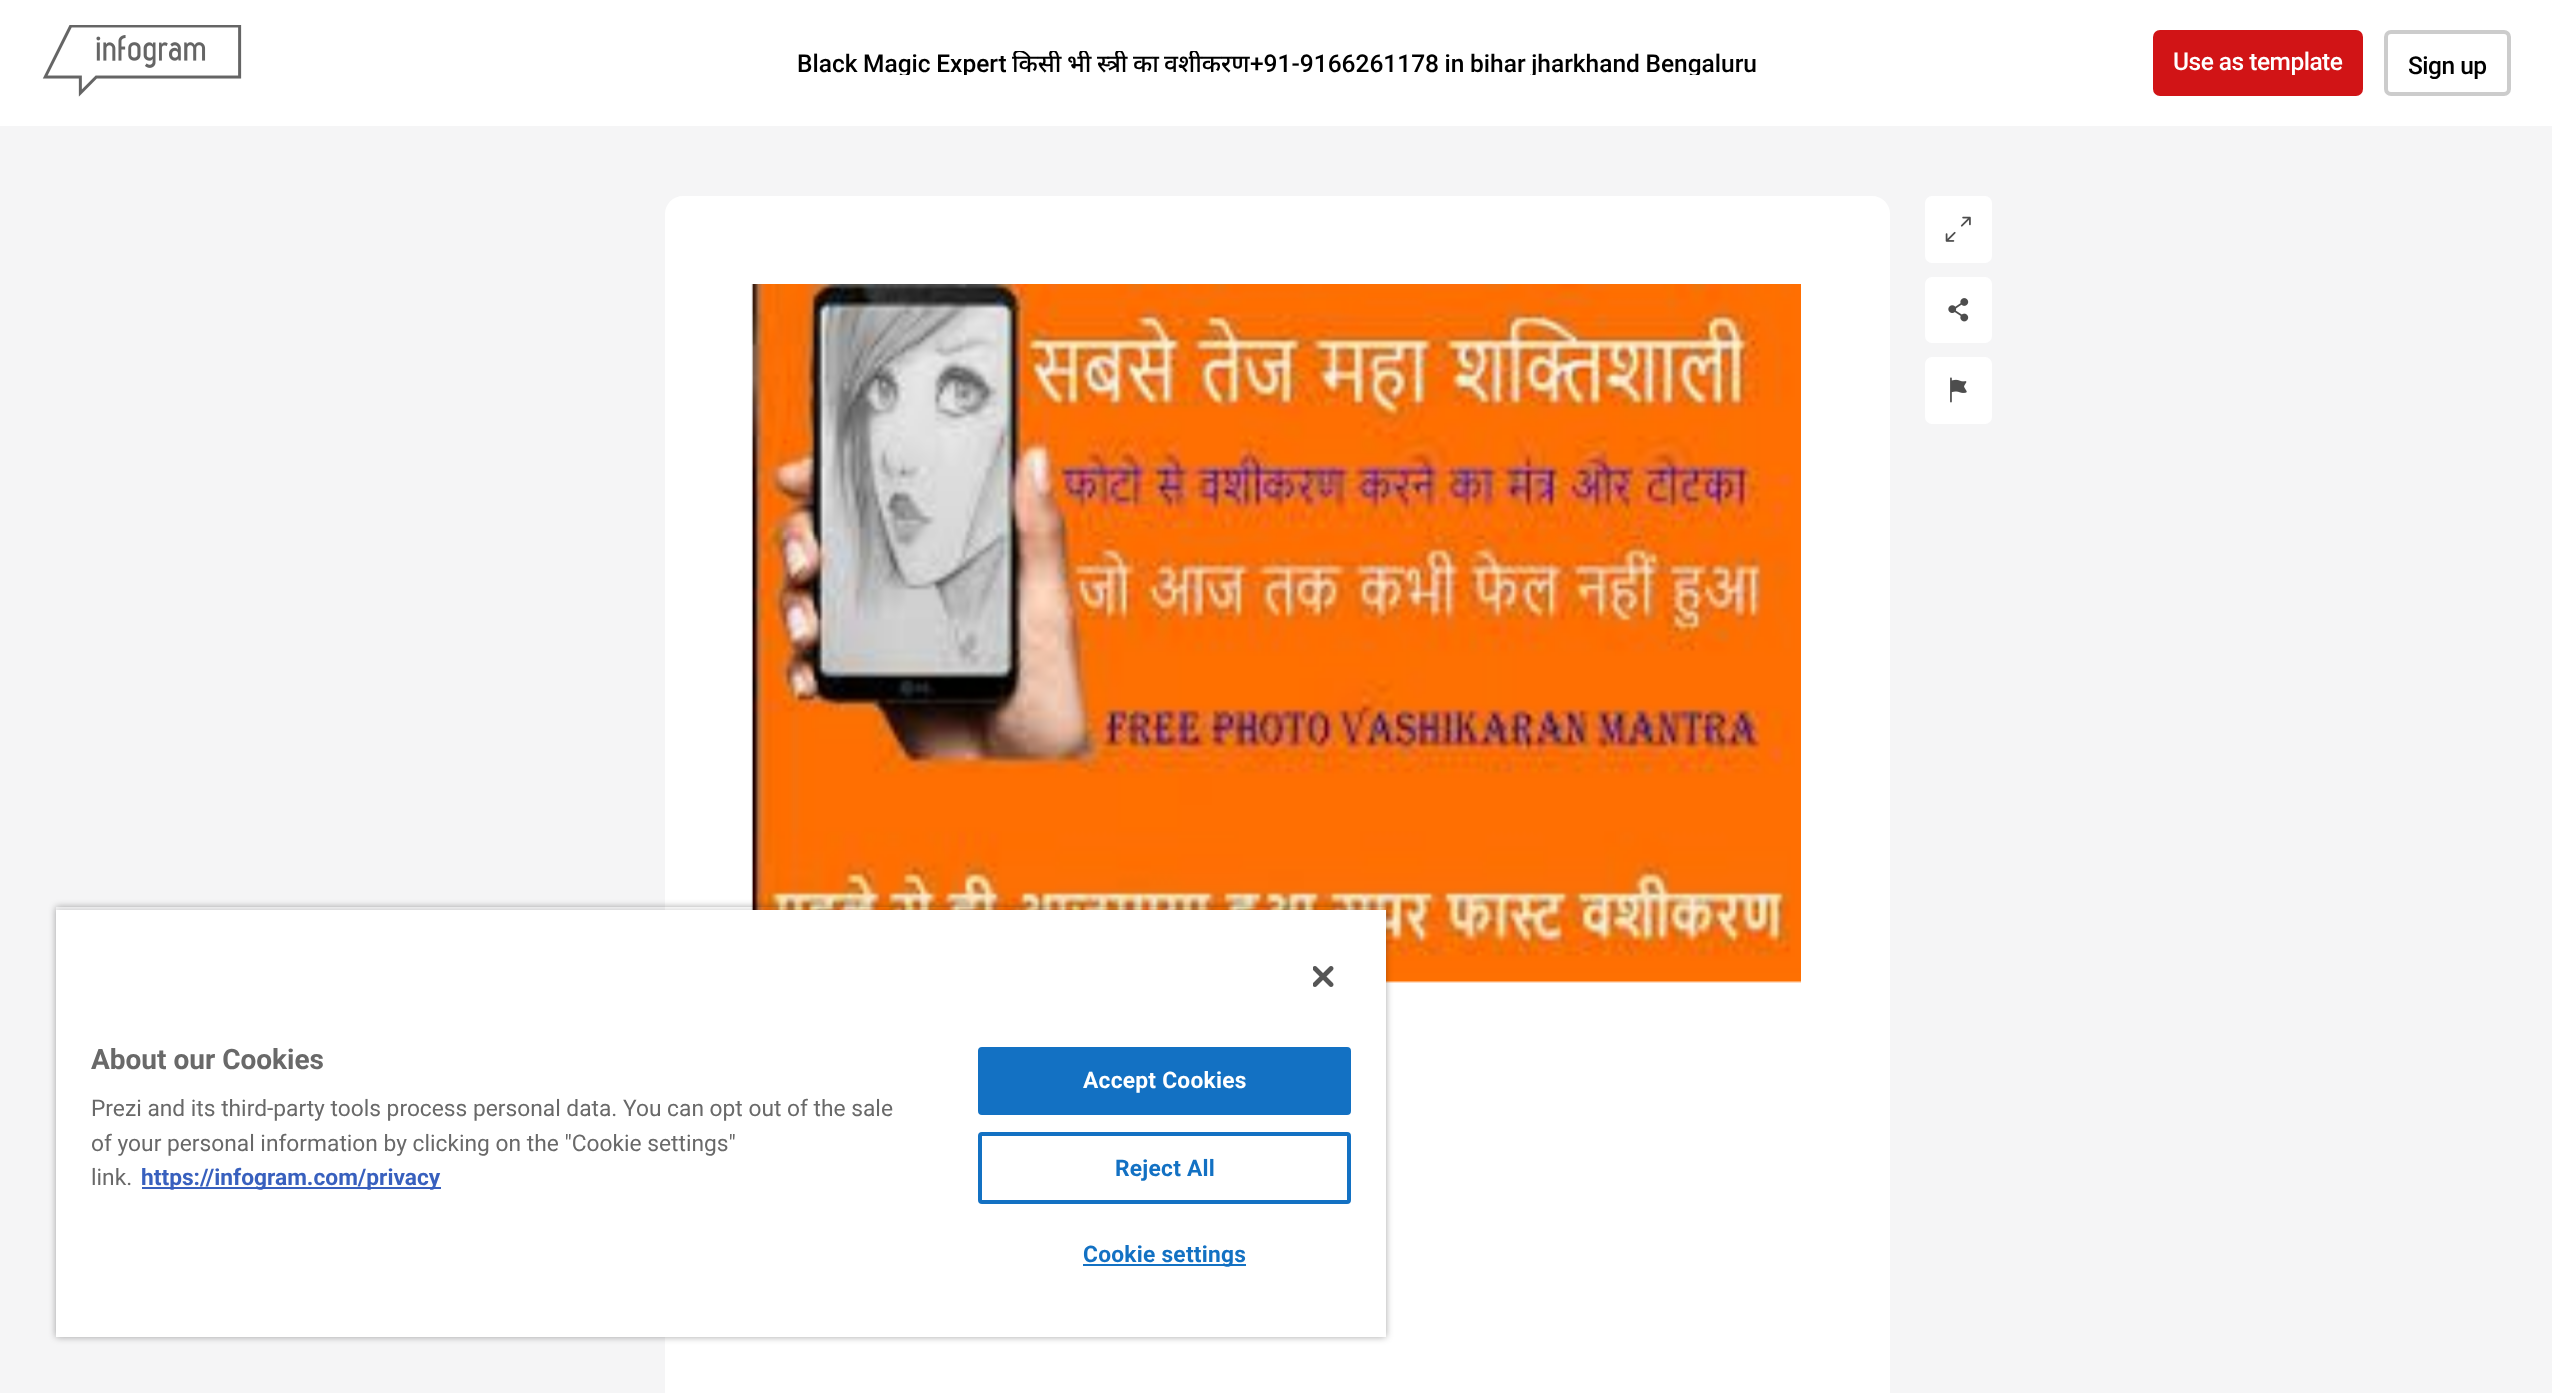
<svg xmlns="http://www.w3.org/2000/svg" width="2552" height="1393">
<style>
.a{font:500 24.5px Roboto;fill:#000}
.b{font:500 24.5px Noto Sans;fill:#000}
.c{font:500 24.5px Roboto;letter-spacing:-0.5px;fill:#fff}
.d{font:500 24.5px Roboto;letter-spacing:-0.5px;fill:#000}
.e{font:bold 28px Roboto;fill:#696969}
.f{font:22.75px Roboto;fill:#696969}
.g{font:bold 22.75px Roboto;fill:#3860be}
.h{font:bold 22.75px Roboto;letter-spacing:0.25px;fill:#fff}
.i{font:bold 22.75px Roboto;letter-spacing:0.25px;fill:#1371c3}
</style>
<defs>
<clipPath id="clip1"><path d="M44 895h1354v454h-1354zm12 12h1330v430h-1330z" clip-rule="evenodd"/></clipPath>
<clipPath id="clip2"><path d="M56 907h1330v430H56z"/></clipPath>
<clipPath id="clip3"><path d="M798 51h959v24H798z"/></clipPath>
</defs>
<rect width="100%" height="100%" fill="#f5f5f6"/>
<path fill="#fff" d="M0 0h2552v126H0z"/>
<image href="1.png" x="42" y="25" width="200" height="72"/>
<rect fill="#d11416" x="2153" y="30" width="210" height="66" rx="7"/>
<rect fill="none" stroke="#ccc" stroke-width="4" x="2386" y="32" width="123" height="62" rx="5"/>
<path fill="#fff" d="M683 196h1189c10 0 18 8 18 18v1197h-1225v-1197c0-10 8-18 18-18z"/>
<image href="2.png" x="751" y="284" width="1050" height="699"/>
<rect fill="#fff" x="1925" y="196" width="67" height="67" rx="7"/>
<image href="3.png" x="1945" y="216" width="26" height="26"/>
<rect fill="#fff" x="1925" y="277" width="67" height="66" rx="7"/>
<image href="4.png" x="1948" y="298" width="21" height="24"/>
<rect fill="#fff" x="1925" y="357" width="67" height="67" rx="7"/>
<image href="5.png" x="1950" y="377" width="17" height="26"/>
<g clip-path="url(#clip1)">
<path fill="#00000059" filter="blur(3.5px)" d="M56 907h1330v430H56z"/>
</g>
<g clip-path="url(#clip2)">
<path fill="#00000033" filter="blur(3.5px)" d="M56 910h1330v427H56z"/>
</g>
<path fill="#fff" d="M56 910h1330v427H56z"/>
<image href="6.png" x="1313" y="966" width="21" height="21"/>
<path fill="#3860be" d="M142 1187h299v2H142z"/>
<rect fill="#1371c3" stroke="#1371c3" stroke-width="2" x="979" y="1048" width="371" height="66" rx="3"/>
<rect fill="none" stroke="#1371c3" stroke-width="4" x="980" y="1134" width="369" height="68" rx="2"/>
<path fill="#1371c3" d="M1083 1264h163v2H1083z"/>
<g clip-path="url(#clip3)">
<text class="a" x="797" y="72" word-spacing="-0.5">Black Magic Expert</text>
<text class="b" x="1012" y="72">किसी</text>
<text class="b" x="1067" y="72">भी</text>
<text class="b" x="1097" y="72">स्त्री</text>
</g>
<text class="b" x="1133" y="72">का</text>
<g clip-path="url(#clip3)">
<text class="b" x="1164" y="72">वशीकरण</text>
<text class="a" x="1250" y="72" word-spacing="-0.5">+91-9166261178 in bihar jharkhand Bengaluru</text>
</g>
<text class="c" x="2173" y="70">Use as template</text>
<text class="d" x="2408" y="74">Sign up</text>
<text class="e" x="91" y="1069">About our Cookies</text>
<text class="f" x="91" y="1116">Prezi and its third-party tools process personal data.</text>
<text class="f" x="623" y="1116">You can opt out of the sale</text>
<text class="f" x="91" y="1151">of your personal information by clicking on the "Cookie settings"</text>
<text class="f" x="91" y="1185">link.</text>
<text class="g" x="141" y="1185">https://infogram.com/privacy</text>
<text class="h" x="1083" y="1088">Accept Cookies</text>
<text class="i" x="1115" y="1176">Reject All</text>
<text class="i" x="1083" y="1262">Cookie settings</text>
</svg>
